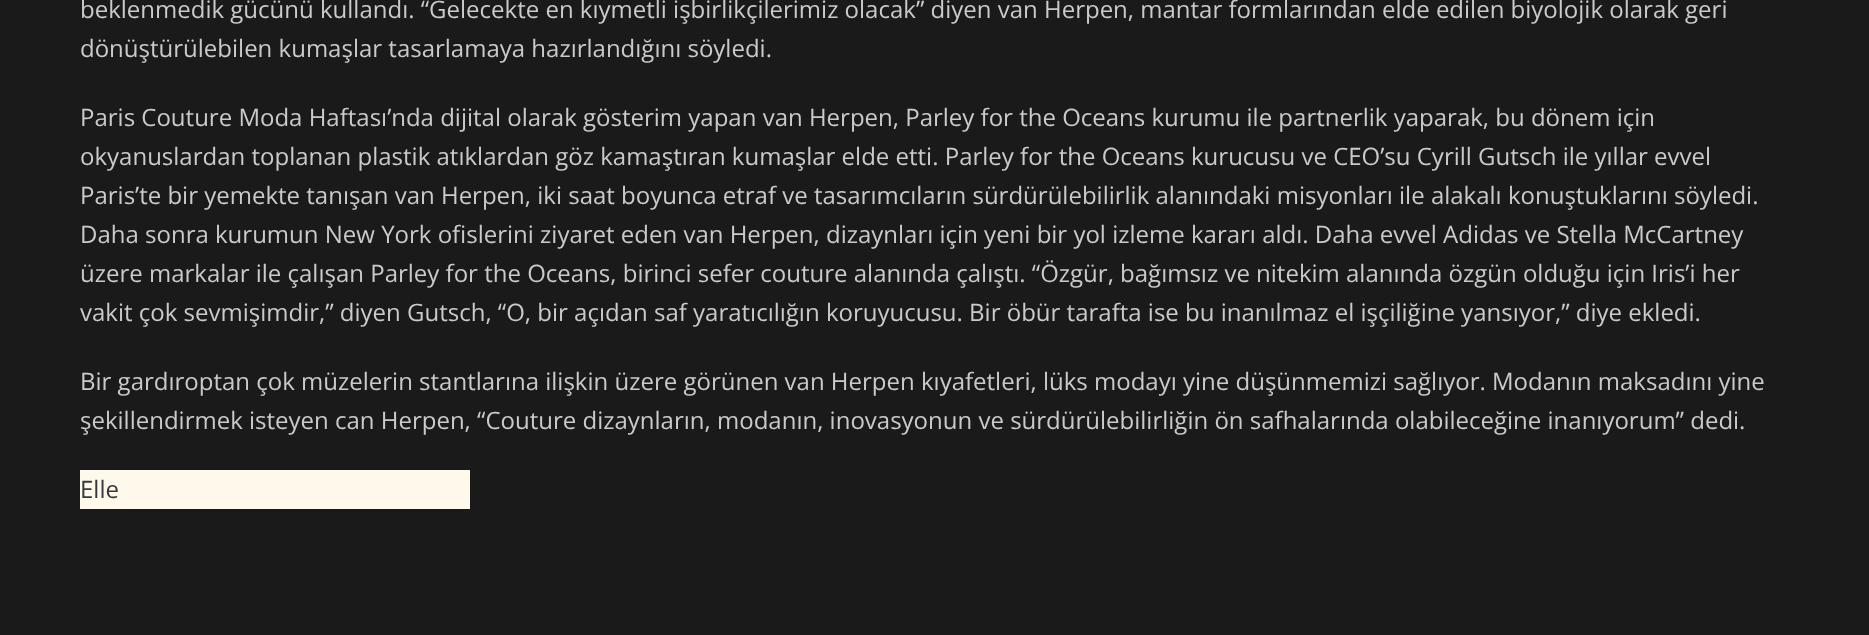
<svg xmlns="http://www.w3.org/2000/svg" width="1869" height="635">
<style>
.a{font:24px Open Sans;fill:#cacaca}
.b{font:24px Open Sans;fill:#373a3c}
</style>
<rect width="100%" height="100%" fill="#1a1a1a"/>
<path fill="#fff9ec" d="M80 470h390v39H80z"/>
<text class="a" x="80" y="18">beklenmedik gücünü kullandı. “Gelecekte en kıymetli işbirlikçilerimiz olacak” diyen van Herpen, mantar formlarından elde edilen biyolojik olarak geri</text>
<text class="a" x="80" y="57">dönüştürülebilen kumaşlar tasarlamaya hazırlandığını söyledi.</text>
<text class="a" x="80" y="126">Paris Couture Moda Haftası’nda dijital olarak gösterim yapan van Herpen, Parley for the Oceans kurumu ile partnerlik yaparak, bu dönem için</text>
<text class="a" x="80" y="165">okyanuslardan toplanan plastik atıklardan göz kamaştıran kumaşlar elde etti. Parley for the Oceans kurucusu ve CEO’su Cyrill Gutsch ile yıllar evvel</text>
<text class="a" x="80" y="204">Paris’te bir yemekte tanışan van Herpen, iki saat boyunca etraf ve tasarımcıların sürdürülebilirlik alanındaki misyonları ile alakalı konuştuklarını söyledi.</text>
<text class="a" x="80" y="243">Daha sonra kurumun New York ofislerini ziyaret eden van Herpen, dizaynları için yeni bir yol izleme kararı aldı. Daha evvel Adidas ve Stella McCartney</text>
<text class="a" x="80" y="282">üzere markalar ile çalışan Parley for the Oceans, birinci sefer couture alanında çalıştı. “Özgür, bağımsız ve nitekim alanında özgün olduğu için Iris’i her</text>
<text class="a" x="80" y="321">vakit çok sevmişimdir,” diyen Gutsch, “O, bir açıdan saf yaratıcılığın koruyucusu. Bir öbür tarafta ise bu inanılmaz el işçiliğine yansıyor,” diye ekledi.</text>
<text class="a" x="80" y="390">Bir gardıroptan çok müzelerin stantlarına ilişkin üzere görünen van Herpen kıyafetleri, lüks modayı yine düşünmemizi sağlıyor. Modanın maksadını yine</text>
<text class="a" x="80" y="429">şekillendirmek isteyen can Herpen, “Couture dizaynların, modanın, inovasyonun ve sürdürülebilirliğin ön safhalarında olabileceğine inanıyorum” dedi.</text>
<text class="b" x="80" y="498">Elle</text>
</svg>
